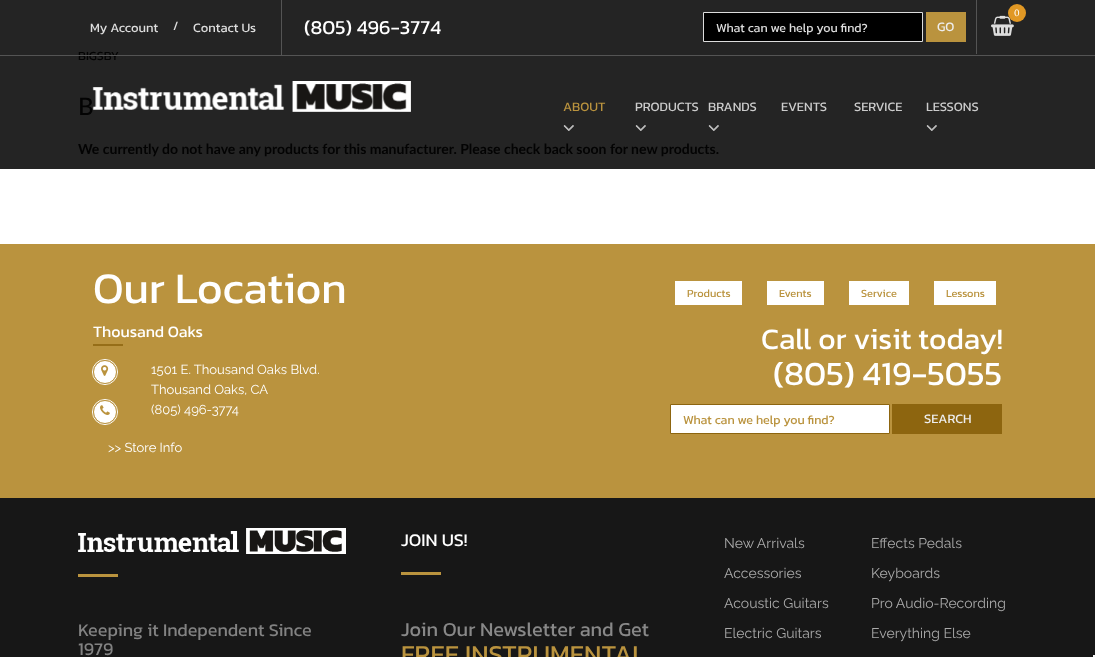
<svg xmlns="http://www.w3.org/2000/svg" width="1095" height="657">
<style>
.a{font:13px Kanit;fill:#ddd}
.b{font:12.5px Kanit;fill:#ddd}
.c{font:20px Kanit;fill:#fff}
.d{font:9px Lora;fill:#fff}
.e{font:13px Kanit;fill:#eee}
.f{font:13px Kanit;fill:#ba933e}
.g{font:13px Kanit;fill:#ccc}
.h{font:12.5px Kanit;fill:#030303}
.i{font:500 24px Lato;fill:#030303}
.j{font:bold 14px Lato;fill:#030303}
.k{font:44px Kanit;fill:#fff}
.l{font:16px Kanit;fill:#fff}
.m{font:100 13px Raleway;fill:#fff}
.n{font:11px Kanit;fill:#ba933e}
.o{font:30px Kanit;fill:#fff}
.p{font:34px Kanit;fill:#fff}
.q{font:12.5px Kanit;fill:#ba933e}
.r{font:18px Kanit;fill:#828282}
.s{font:18px Kanit;fill:#fff}
.t{font:20px Kanit;fill:#888}
.u{font:26px Kanit;fill:#ba933e}
.v{font:100 14px Raleway;fill:#aaa}
</style>
<rect width="100%" height="100%" fill="#fff"/>
<path fill="#242424" d="M0 0h1095v169H0z"/>
<path fill="#545454" d="M281 0h1v55H281z"/>
<path fill="#545454" d="M976 0h1v54H976z"/>
<image href="1.png" x="991" y="15" width="23" height="21"/>
<circle fill="#e19824" cx="1017" cy="13" r="9"/>
<path fill="#000" stroke="#ddd" d="M703.5 12.5h219v29H703.5z"/>
<path fill="#ba933e" d="M926 12h40v30H926z"/>
<image href="2.png" x="92" y="81" width="319" height="31"/>
<image href="3.png" x="563" y="125" width="11" height="6"/>
<image href="4.png" x="563" y="125" width="11" height="6"/>
<image href="3.png" x="635" y="125" width="11" height="6"/>
<image href="4.png" x="635" y="125" width="11" height="6"/>
<image href="3.png" x="708" y="125" width="11" height="6"/>
<image href="4.png" x="708" y="125" width="11" height="6"/>
<image href="3.png" x="926" y="125" width="11" height="6"/>
<image href="4.png" x="926" y="125" width="11" height="6"/>
<path fill="#ba933e" d="M0 244h1095v254H0z"/>
<path fill="#966e18" d="M93 344h30v2H93z"/>
<circle fill="none" stroke="#fff" cx="105" cy="372" r="12.5"/>
<circle fill="#fff" stroke="#ba933e" cx="105" cy="372" r="11.5"/>
<image href="5.png" x="101" y="365" width="8" height="11"/>
<circle fill="none" stroke="#fff" cx="105" cy="412" r="12.5"/>
<circle fill="#fff" stroke="#ba933e" cx="105" cy="412" r="11.5"/>
<image href="6.png" x="100" y="405" width="10" height="10"/>
<path fill="#fff" d="M675 281h67v24H675z"/>
<path fill="#fff" d="M767 281h57v24H767z"/>
<path fill="#fff" d="M849 281h60v24H849z"/>
<path fill="#fff" d="M934 281h62v24H934z"/>
<path fill="#fff" stroke="#8d650f" d="M670.5 404.5h219v29H670.5z"/>
<path fill="#8d650f" d="M892 404h110v30H892z"/>
<path fill="#171717" d="M0 498h1095v159H0z"/>
<image href="7.png" x="78" y="528" width="268" height="26"/>
<path fill="#ba933e" d="M78 574h40v3H78z"/>
<path fill="#ba933e" d="M401 572h40v3H401z"/>
<path fill="#f5f5f5" d="M1093 655h2v2H1093z"/>
<text class="a" x="90" y="32">My Account</text>
<text class="b" x="173" y="30">/</text>
<text class="a" x="193" y="32">Contact Us</text>
<text class="c" x="304" y="34">(805) 496-3774</text>
<text class="d" x="1014" y="16">0</text>
<text class="b" x="716" y="32">What can we help you find?</text>
<text class="e" x="937" y="31">GO</text>
<text class="f" x="563" y="111">ABOUT</text>
<text class="g" x="635" y="111">PRODUCTS</text>
<text class="g" x="708" y="111">BRANDS</text>
<text class="g" x="781" y="111">EVENTS</text>
<text class="g" x="854" y="111">SERVICE</text>
<text class="g" x="926" y="111">LESSONS</text>
<text class="h" x="78" y="60">BIGSBY</text>
<path fill="#545454" d="M0 55h1095v1H0z"/>
<text class="i" x="78" y="115">B</text>
<text class="j" x="78" y="154">We currently do not have any products for this manufacturer. Please check back soon for new products.</text>
<text class="k" x="93" y="303">Our Location</text>
<text class="l" x="93" y="337">Thousand Oaks</text>
<text class="m" x="151" y="374">1501 E. Thousand Oaks Blvd.</text>
<text class="m" x="151" y="394">Thousand Oaks, CA</text>
<text class="m" x="151" y="414">(805) 496-3774</text>
<text class="m" x="108" y="452">&gt;&gt; Store Info</text>
<text class="n" x="687" y="297">Products</text>
<text class="n" x="779" y="297">Events</text>
<text class="n" x="861" y="297">Service</text>
<text class="n" x="946" y="297">Lessons</text>
<text class="o" x="761" y="349">Call or visit today!</text>
<text class="p" x="773" y="385">(805) 419-5055</text>
<text class="q" x="683" y="424">What can we help you find?</text>
<text class="e" x="924" y="423">SEARCH</text>
<text class="r" x="78" y="636">Keeping it Independent Since</text>
<text class="r" x="78" y="655">1979</text>
<text class="s" x="401" y="546">JOIN US!</text>
<text class="t" x="401" y="636">Join Our Newsletter and Get</text>
<text class="u" x="401" y="663">FREE INSTRUMENTAL</text>
<text class="v" x="724" y="548">New Arrivals</text>
<text class="v" x="724" y="578">Accessories</text>
<text class="v" x="724" y="608">Acoustic Guitars</text>
<text class="v" x="724" y="638">Electric Guitars</text>
<text class="v" x="871" y="548">Effects Pedals</text>
<text class="v" x="871" y="578">Keyboards</text>
<text class="v" x="871" y="608">Pro Audio-Recording</text>
<text class="v" x="871" y="638">Everything Else</text>
</svg>
